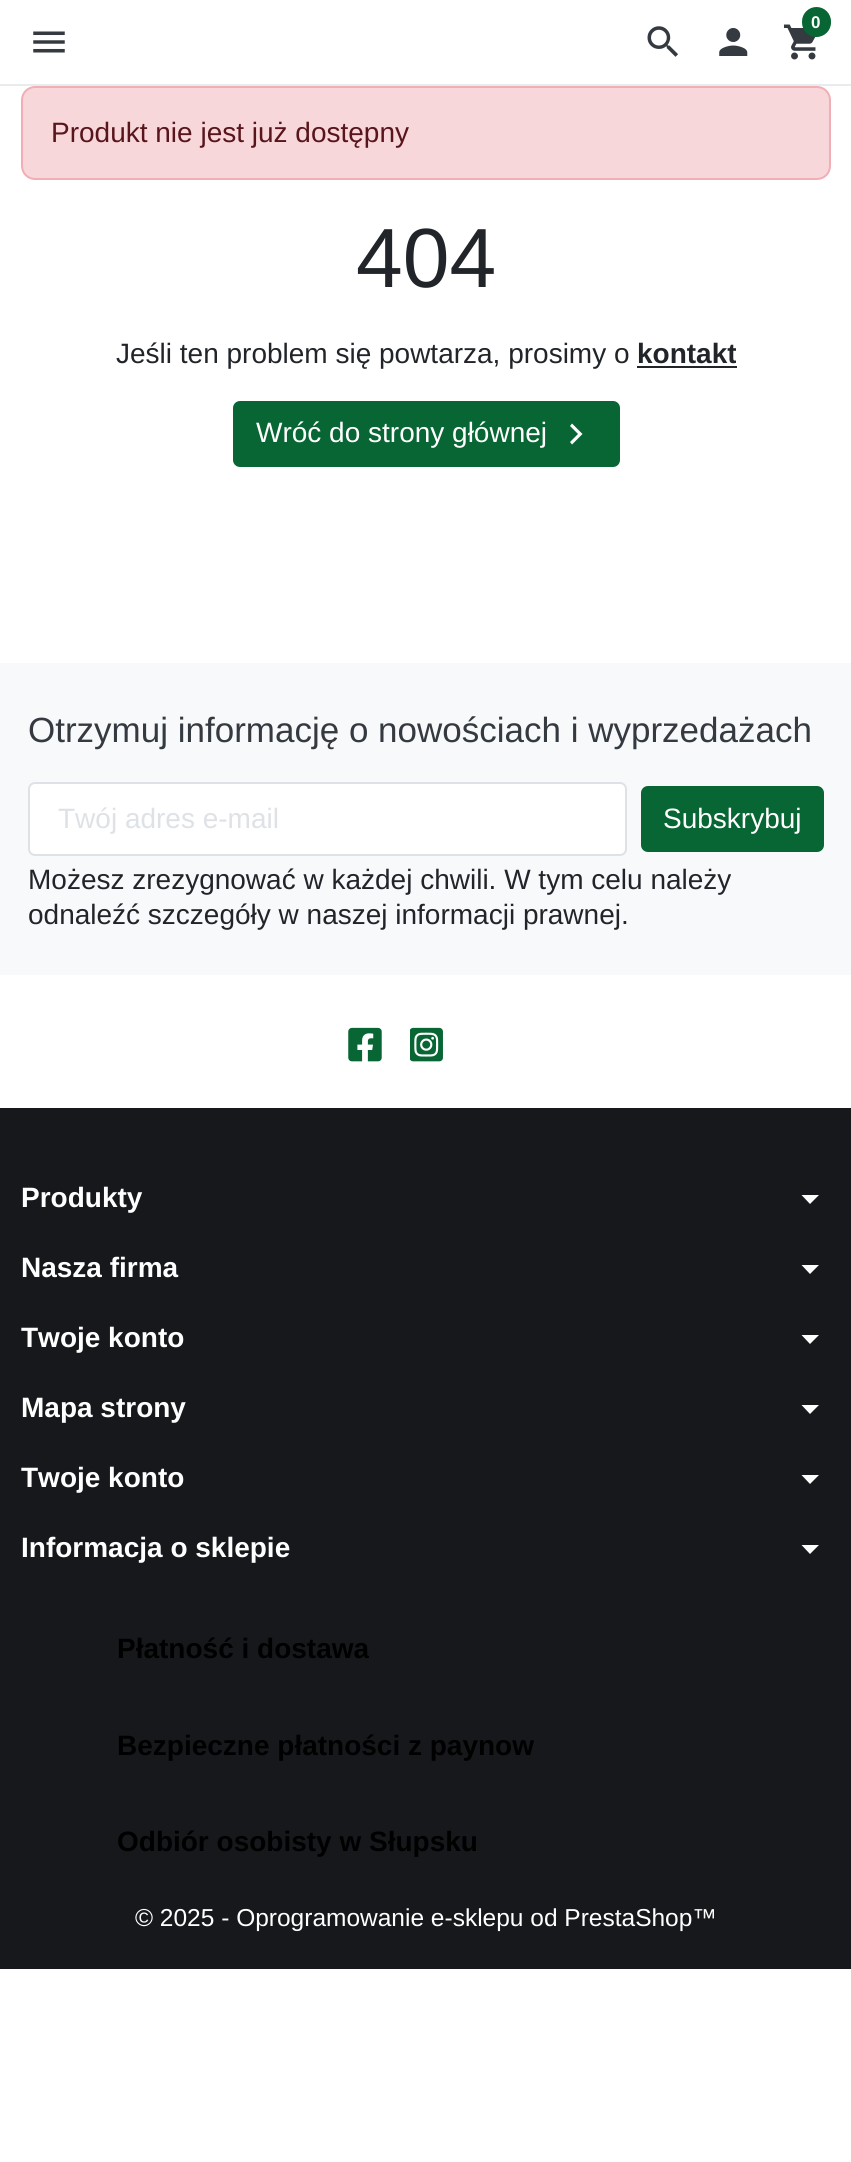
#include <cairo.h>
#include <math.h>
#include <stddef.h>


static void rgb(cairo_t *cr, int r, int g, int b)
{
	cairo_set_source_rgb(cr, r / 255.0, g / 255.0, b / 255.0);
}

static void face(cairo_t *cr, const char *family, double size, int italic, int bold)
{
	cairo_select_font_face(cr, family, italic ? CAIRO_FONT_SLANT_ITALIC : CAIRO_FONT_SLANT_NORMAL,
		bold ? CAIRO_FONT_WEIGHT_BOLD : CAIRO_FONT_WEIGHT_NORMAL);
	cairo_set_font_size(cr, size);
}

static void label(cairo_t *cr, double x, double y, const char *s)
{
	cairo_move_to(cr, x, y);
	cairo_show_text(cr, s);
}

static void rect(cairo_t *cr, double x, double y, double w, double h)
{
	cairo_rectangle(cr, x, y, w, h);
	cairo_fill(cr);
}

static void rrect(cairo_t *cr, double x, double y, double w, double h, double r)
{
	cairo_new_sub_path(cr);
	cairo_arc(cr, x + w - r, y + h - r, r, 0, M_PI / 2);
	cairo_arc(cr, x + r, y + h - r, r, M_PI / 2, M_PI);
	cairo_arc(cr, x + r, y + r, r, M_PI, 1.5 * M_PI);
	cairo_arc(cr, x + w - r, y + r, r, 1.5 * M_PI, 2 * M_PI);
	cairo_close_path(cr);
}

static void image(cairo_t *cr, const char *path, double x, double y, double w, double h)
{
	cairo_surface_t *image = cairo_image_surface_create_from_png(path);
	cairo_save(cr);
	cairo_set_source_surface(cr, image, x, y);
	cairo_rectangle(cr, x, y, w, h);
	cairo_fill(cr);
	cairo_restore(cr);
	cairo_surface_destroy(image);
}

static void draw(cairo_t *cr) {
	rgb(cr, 255, 255, 255);
	cairo_paint(cr);
	rgb(cr, 233, 236, 239);
	rect(cr, 0, 84, 851, 2);
	image(cr, "image0.png", 783, 24, 33, 36);
	rgb(cr, 7, 102, 51);
	rrect(cr, 802, 7, 29, 30, 14.5);
	cairo_fill(cr);
	face(cr, "Liberation Sans", 17, 0, 1);
	rgb(cr, 255, 255, 255);
	label(cr, 811, 28, "0");
	image(cr, "image1.png", 33, 31, 32, 22);
	image(cr, "image2.png", 647, 26, 31, 31);
	image(cr, "image3.png", 719, 28, 29, 28);
	rgb(cr, 248, 215, 218);
	rrect(cr, 22, 87, 808, 92, 13);
	cairo_fill_preserve(cr);
	rgb(cr, 241, 174, 181);
	cairo_stroke(cr);
	face(cr, "Liberation Sans", 28, 0, 0);
	rgb(cr, 88, 21, 28);
	label(cr, 51, 142, "Produkt nie jest już dostępny");
	face(cr, "Liberation Sans", 84, 0, 0);
	rgb(cr, 33, 37, 41);
	label(cr, 356, 287, "404");
	face(cr, "Liberation Sans", 28, 0, 0);
	label(cr, 116, 363, "Jeśli ten problem się powtarza, prosimy o");
	face(cr, "Liberation Sans", 28, 0, 1);
	label(cr, 637, 363, "kontakt");
	rect(cr, 637, 366, 100, 2);
	rgb(cr, 7, 102, 51);
	rrect(cr, 234, 402, 385, 64, 6);
	cairo_fill_preserve(cr);
	cairo_stroke(cr);
	face(cr, "Liberation Sans", 28, 0, 0);
	rgb(cr, 255, 255, 255);
	label(cr, 256, 442, "Wróć do strony głównej");
	cairo_new_path(cr);
	cairo_move_to(cr, 570, 442);
	cairo_line_to(cr, 578, 434);
	cairo_line_to(cr, 570, 426);
	cairo_line_to(cr, 572, 423.5);
	cairo_line_to(cr, 582.5, 434);
	cairo_line_to(cr, 572, 444.5);
	cairo_close_path(cr);
	cairo_fill(cr);
	rgb(cr, 248, 249, 250);
	rect(cr, 0, 663, 851, 312);
	face(cr, "Liberation Sans", 35, 0, 0);
	rgb(cr, 52, 58, 64);
	label(cr, 28, 742, "Otrzymuj informację o nowościach i wyprzedażach");
	rgb(cr, 255, 255, 255);
	rrect(cr, 29, 783, 597, 72, 6);
	cairo_fill_preserve(cr);
	rgb(cr, 222, 226, 230);
	cairo_stroke(cr);
	face(cr, "Liberation Sans", 28, 0, 0);
	label(cr, 58, 828, "Twój adres e-mail");
	rgb(cr, 7, 102, 51);
	rrect(cr, 642, 787, 181, 64, 6);
	cairo_fill_preserve(cr);
	cairo_stroke(cr);
	rgb(cr, 255, 255, 255);
	label(cr, 663, 828, "Subskrybuj");
	rgb(cr, 33, 37, 41);
	label(cr, 28, 889, "Możesz zrezygnować w każdej chwili. W tym celu należy");
	label(cr, 28, 924, "odnaleźć szczegóły w naszej informacji prawnej.");
	image(cr, "image4.png", 348, 1027, 34, 35);
	image(cr, "image5.png", 410, 1027, 33, 35);
	rgb(cr, 22, 24, 28);
	rect(cr, 0, 1108, 851, 861);
	face(cr, "Liberation Sans", 28, 0, 1);
	rgb(cr, 255, 255, 255);
	label(cr, 21, 1207, "Produkty");
	cairo_new_path(cr);
	cairo_move_to(cr, 801.5, 1195);
	cairo_line_to(cr, 819, 1195);
	cairo_line_to(cr, 810, 1204);
	cairo_close_path(cr);
	cairo_fill(cr);
	label(cr, 21, 1277, "Nasza firma");
	cairo_new_path(cr);
	cairo_move_to(cr, 801.5, 1265);
	cairo_line_to(cr, 819, 1265);
	cairo_line_to(cr, 810, 1274);
	cairo_close_path(cr);
	cairo_fill(cr);
	label(cr, 21, 1347, "Twoje konto");
	cairo_new_path(cr);
	cairo_move_to(cr, 801.5, 1335);
	cairo_line_to(cr, 819, 1335);
	cairo_line_to(cr, 810, 1344);
	cairo_close_path(cr);
	cairo_fill(cr);
	label(cr, 21, 1417, "Mapa strony");
	cairo_new_path(cr);
	cairo_move_to(cr, 801.5, 1405);
	cairo_line_to(cr, 819, 1405);
	cairo_line_to(cr, 810, 1414);
	cairo_close_path(cr);
	cairo_fill(cr);
	label(cr, 21, 1487, "Twoje konto");
	cairo_new_path(cr);
	cairo_move_to(cr, 801.5, 1475);
	cairo_line_to(cr, 819, 1475);
	cairo_line_to(cr, 810, 1484);
	cairo_close_path(cr);
	cairo_fill(cr);
	label(cr, 21, 1557, "Informacja o sklepie");
	cairo_new_path(cr);
	cairo_move_to(cr, 801.5, 1545);
	cairo_line_to(cr, 819, 1545);
	cairo_line_to(cr, 810, 1554);
	cairo_close_path(cr);
	cairo_fill(cr);
	rgb(cr, 0, 0, 0);
	label(cr, 117, 1658, "Płatność i dostawa");
	label(cr, 117, 1755, "Bezpieczne płatności z paynow");
	label(cr, 117, 1851, "Odbiór osobisty w Słupsku");
	face(cr, "Liberation Sans", 24.5, 0, 0);
	rgb(cr, 255, 255, 255);
	label(cr, 135, 1926, "© 2025 - Oprogramowanie e-sklepu od PrestaShop™");
}

int main(void) {
	cairo_surface_t *surface = cairo_image_surface_create(CAIRO_FORMAT_RGB24, 851, 2162);
	cairo_t *cr = cairo_create(surface);
	cairo_font_options_t *options = cairo_font_options_create();
	cairo_font_options_set_hint_metrics(options, CAIRO_HINT_METRICS_OFF);
	cairo_font_options_set_hint_style(options, CAIRO_HINT_STYLE_NONE);
	cairo_set_font_options(cr, options);
	cairo_set_miter_limit(cr, 4);
	draw(cr);
	cairo_surface_write_to_png(surface, "render.png");
	cairo_font_options_destroy(options);
	cairo_destroy(cr);
	cairo_surface_destroy(surface);
	return 0;
}
